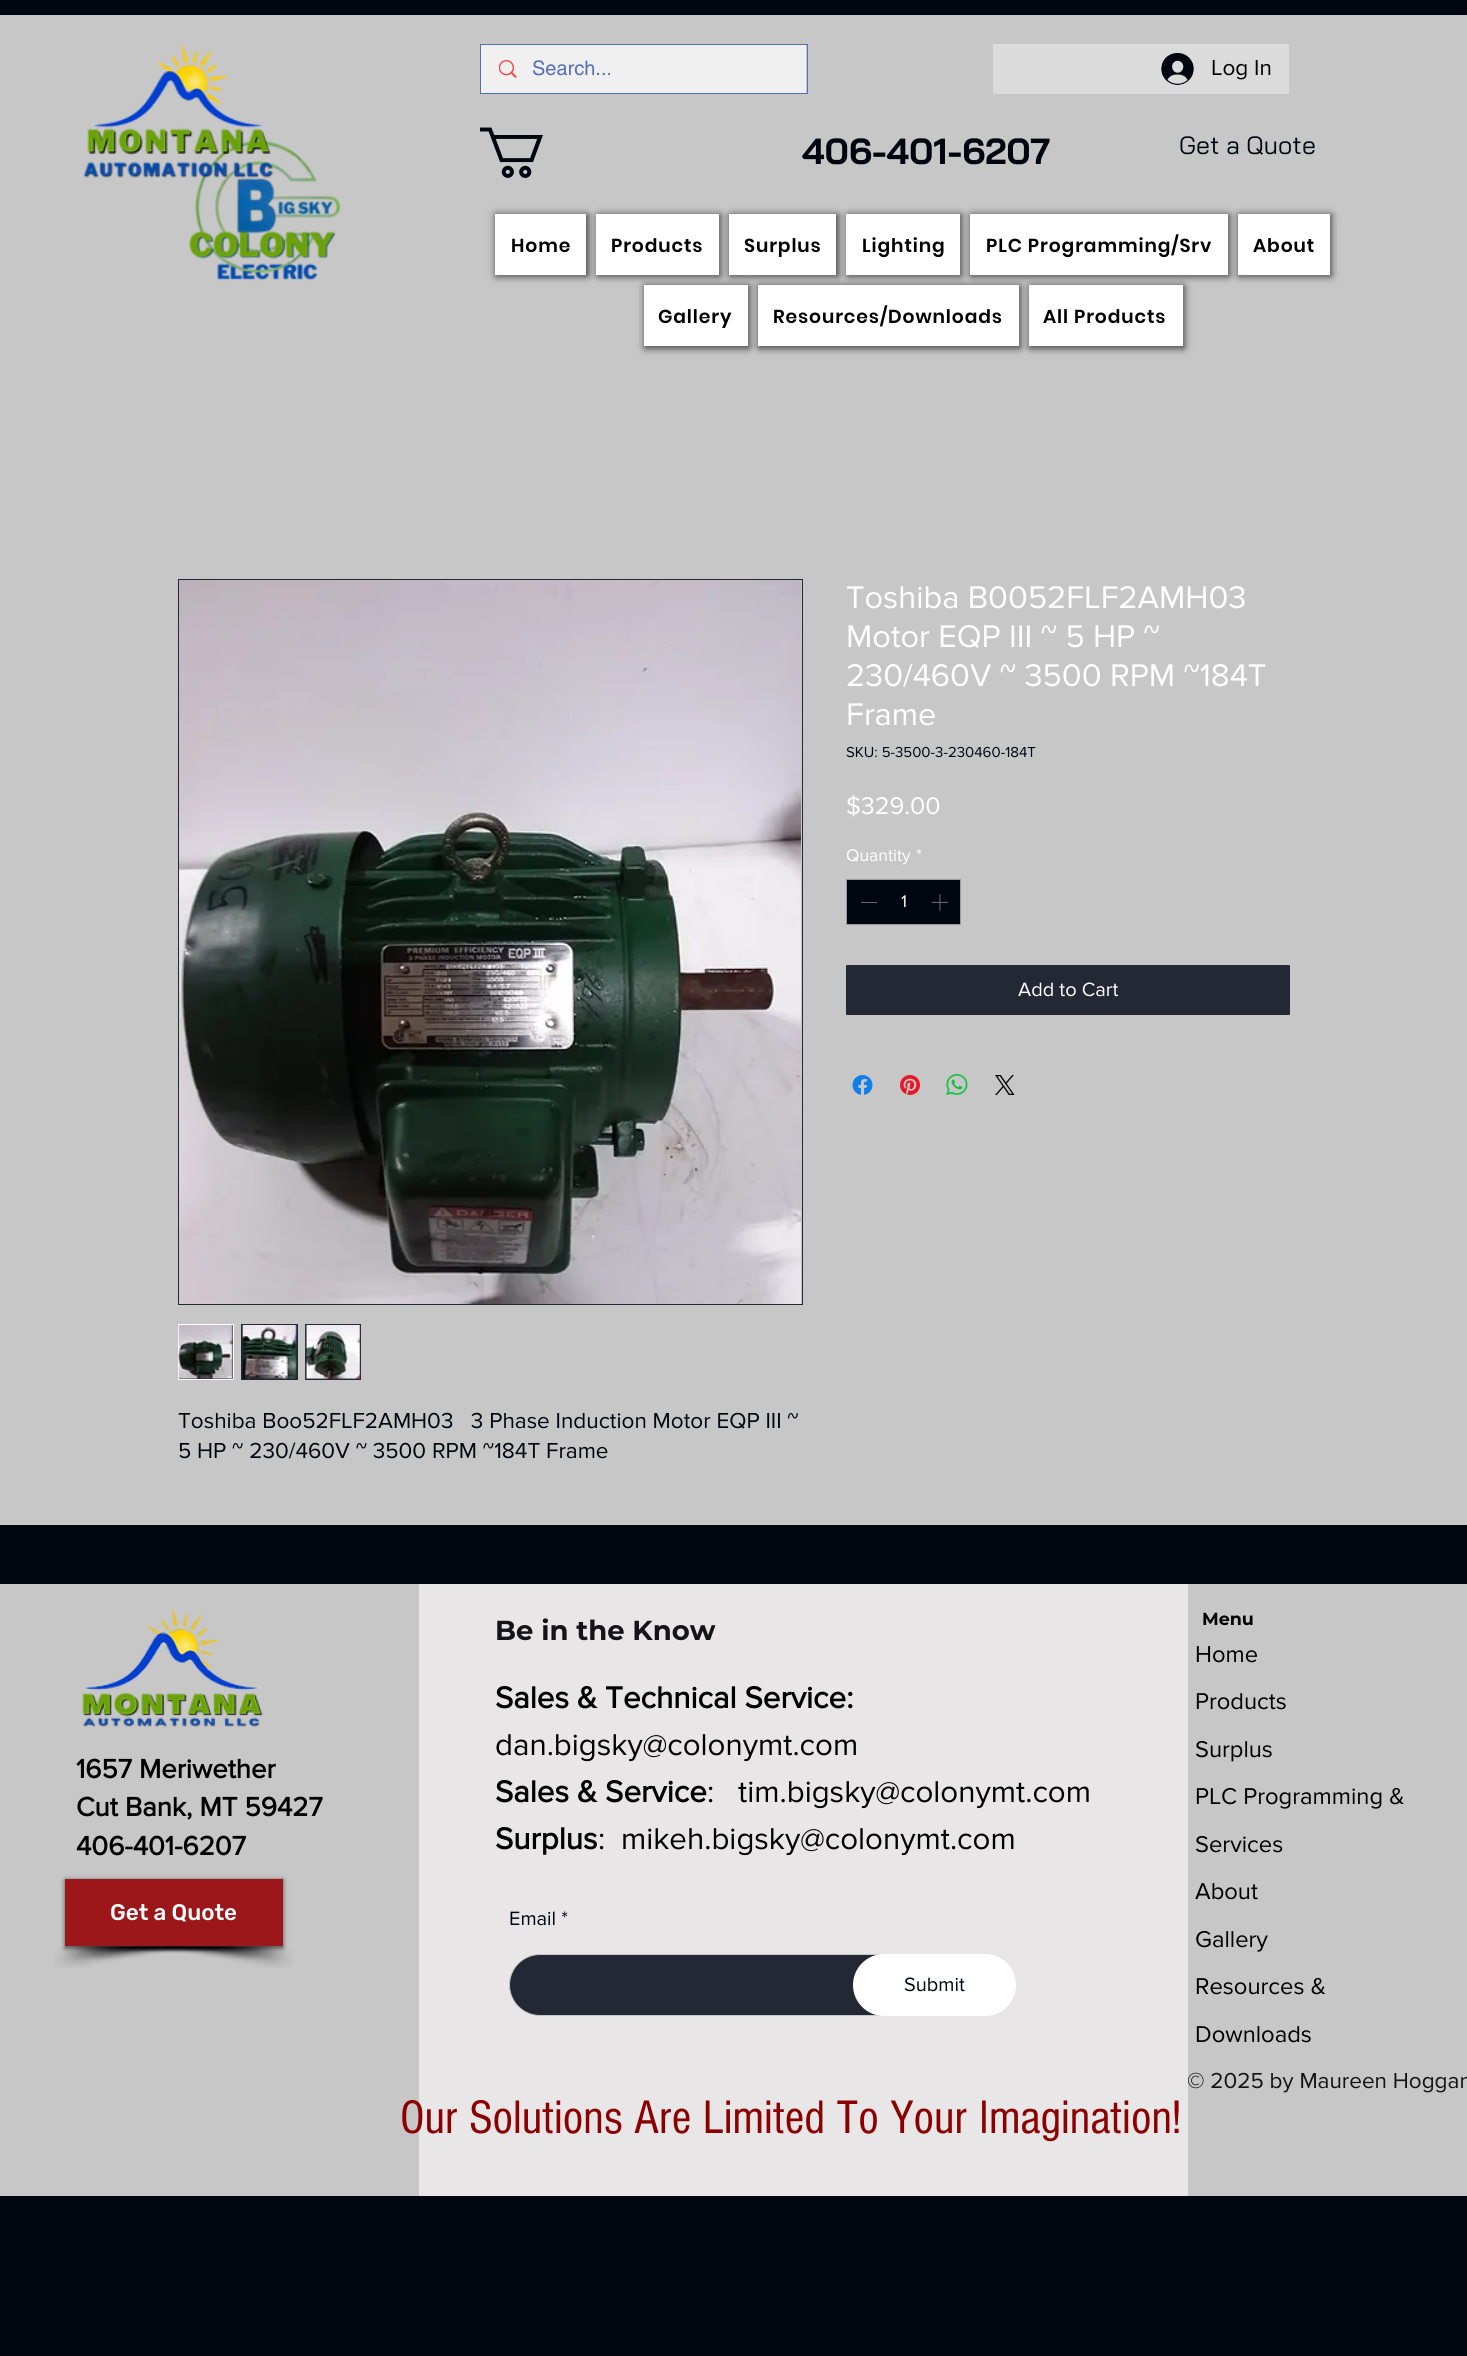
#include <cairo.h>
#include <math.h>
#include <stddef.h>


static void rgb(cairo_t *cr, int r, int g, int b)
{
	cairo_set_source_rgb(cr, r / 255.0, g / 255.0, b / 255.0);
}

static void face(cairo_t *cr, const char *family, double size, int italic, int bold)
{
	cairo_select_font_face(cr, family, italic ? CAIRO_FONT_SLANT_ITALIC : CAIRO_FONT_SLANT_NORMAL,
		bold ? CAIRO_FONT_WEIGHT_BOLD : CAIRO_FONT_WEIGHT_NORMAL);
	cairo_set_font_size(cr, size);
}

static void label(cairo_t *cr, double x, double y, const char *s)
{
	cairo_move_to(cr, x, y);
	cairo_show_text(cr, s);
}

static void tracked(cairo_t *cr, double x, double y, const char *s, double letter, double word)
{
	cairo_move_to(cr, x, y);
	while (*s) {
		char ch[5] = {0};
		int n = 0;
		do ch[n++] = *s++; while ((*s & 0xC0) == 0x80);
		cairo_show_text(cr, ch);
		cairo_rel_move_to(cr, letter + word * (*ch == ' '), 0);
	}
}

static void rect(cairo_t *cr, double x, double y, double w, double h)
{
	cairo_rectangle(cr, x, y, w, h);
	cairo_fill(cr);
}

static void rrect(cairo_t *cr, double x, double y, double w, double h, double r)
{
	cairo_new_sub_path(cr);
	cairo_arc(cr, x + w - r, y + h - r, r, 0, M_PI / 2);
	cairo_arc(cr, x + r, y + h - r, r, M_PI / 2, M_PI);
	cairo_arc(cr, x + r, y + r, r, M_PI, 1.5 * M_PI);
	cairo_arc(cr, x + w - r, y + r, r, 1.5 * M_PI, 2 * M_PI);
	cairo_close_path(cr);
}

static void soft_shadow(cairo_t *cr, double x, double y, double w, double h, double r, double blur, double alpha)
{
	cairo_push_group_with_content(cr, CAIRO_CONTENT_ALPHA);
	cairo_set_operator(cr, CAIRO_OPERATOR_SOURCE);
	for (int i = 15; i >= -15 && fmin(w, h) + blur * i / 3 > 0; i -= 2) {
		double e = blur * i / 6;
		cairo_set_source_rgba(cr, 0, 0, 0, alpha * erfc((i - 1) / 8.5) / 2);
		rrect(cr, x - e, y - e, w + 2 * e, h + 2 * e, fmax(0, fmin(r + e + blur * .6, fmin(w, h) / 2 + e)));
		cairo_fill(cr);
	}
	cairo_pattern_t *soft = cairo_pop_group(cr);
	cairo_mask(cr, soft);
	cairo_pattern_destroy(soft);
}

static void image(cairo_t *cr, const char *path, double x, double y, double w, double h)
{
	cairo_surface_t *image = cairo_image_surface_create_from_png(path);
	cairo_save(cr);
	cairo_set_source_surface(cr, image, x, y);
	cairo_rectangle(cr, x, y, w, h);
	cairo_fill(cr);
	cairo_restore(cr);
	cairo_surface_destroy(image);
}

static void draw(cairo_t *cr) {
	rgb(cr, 0, 6, 15);
	cairo_paint(cr);
	rgb(cr, 199, 199, 199);
	rect(cr, 0, 15, 1467, 381);
	image(cr, "image0.png", 83, 45, 259, 236);
	cairo_rectangle(cr, 480.5, 44.5, 327, 49);
	rgb(cr, 86, 111, 184);
	cairo_set_line_width(cr, 1);
	cairo_stroke(cr);
	rgb(cr, 240, 240, 240);
	rect(cr, 481, 45, 325, 48);
	image(cr, "image1.png", 499, 60, 18, 18);
	face(cr, "helvetica", 20, 0, 0);
	rgb(cr, 86, 111, 184);
	label(cr, 532, 75, "Search...");
	rgb(cr, 220, 219, 219);
	rect(cr, 993, 44, 296, 50);
	image(cr, "image2.png", 1161, 53, 33, 32);
	face(cr, "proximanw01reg", 22.5, 0, 0);
	rgb(cr, 0, 0, 0);
	label(cr, 1211, 75, "Log In");
	image(cr, "image3.png", 480, 127, 63, 51);
	face(cr, "Bai Jamjuree", 36.25, 0, 1);
	rgb(cr, 0, 6, 15);
	label(cr, 802, 164, "406-401-6207");
	face(cr, "Bai Jamjuree", 25, 0, 0);
	label(cr, 1179, 154, "Get a Quote");
	rgb(cr, 36, 35, 35);
	soft_shadow(cr, 496, 215, 92, 61, 0, 4, 0.88);
	rgb(cr, 255, 255, 255);
	rect(cr, 495, 214, 91, 61);
	face(cr, "Poppins SemiBold", 18.75, 0, 0);
	rgb(cr, 0, 0, 0);
	tracked(cr, 511, 252, "Home", 0.9, 0);
	rgb(cr, 36, 35, 35);
	soft_shadow(cr, 598, 215, 122, 61, 0, 4, 0.88);
	rgb(cr, 255, 255, 255);
	rect(cr, 596, 214, 123, 61);
	rgb(cr, 0, 0, 0);
	tracked(cr, 611, 252, "Products", 0.9, 0);
	rgb(cr, 36, 35, 35);
	soft_shadow(cr, 730, 215, 108, 61, 0, 4, 0.88);
	rgb(cr, 255, 255, 255);
	rect(cr, 729, 214, 107, 61);
	rgb(cr, 0, 0, 0);
	tracked(cr, 744, 252, "Surplus", 0.9, 0);
	rgb(cr, 36, 35, 35);
	soft_shadow(cr, 848, 215, 113, 61, 0, 4, 0.88);
	rgb(cr, 255, 255, 255);
	rect(cr, 846, 214, 114, 61);
	rgb(cr, 0, 0, 0);
	tracked(cr, 862, 252, "Lighting", 0.9, 0);
	rgb(cr, 36, 35, 35);
	soft_shadow(cr, 971, 215, 258, 61, 0, 4, 0.88);
	rgb(cr, 255, 255, 255);
	rect(cr, 970, 214, 258, 61);
	rgb(cr, 0, 0, 0);
	tracked(cr, 986, 252, "PLC Programming/Srv", 0.9, 0);
	rgb(cr, 36, 35, 35);
	soft_shadow(cr, 1239, 215, 92, 61, 0, 4, 0.88);
	rgb(cr, 255, 255, 255);
	rect(cr, 1238, 214, 92, 61);
	rgb(cr, 0, 0, 0);
	tracked(cr, 1253, 252, "About", 0.9, 0);
	rgb(cr, 36, 35, 35);
	soft_shadow(cr, 645, 286, 104, 62, 0, 4, 0.88);
	rgb(cr, 255, 255, 255);
	rect(cr, 644, 285, 104, 61);
	rgb(cr, 0, 0, 0);
	tracked(cr, 658, 323, "Gallery", 0.9, 0);
	rgb(cr, 36, 35, 35);
	soft_shadow(cr, 759, 286, 261, 62, 0, 4, 0.88);
	rgb(cr, 255, 255, 255);
	rect(cr, 758, 285, 261, 61);
	rgb(cr, 0, 0, 0);
	tracked(cr, 773, 323, "Resources/Downloads", 0.9, 0);
	rgb(cr, 36, 35, 35);
	soft_shadow(cr, 1030, 286, 154, 62, 0, 4, 0.88);
	rgb(cr, 255, 255, 255);
	rect(cr, 1029, 285, 154, 61);
	rgb(cr, 0, 0, 0);
	tracked(cr, 1043, 323, "All Products", 0.9, 0);
	rgb(cr, 199, 199, 199);
	rect(cr, 0, 396, 1467, 1129);
	face(cr, "proximanw01reg", 32.5, 0, 0);
	rgb(cr, 255, 255, 255);
	label(cr, 846, 608, "Toshiba B0052FLF2AMH03");
	label(cr, 846, 647, "Motor EQP III ~ 5 HP ~");
	label(cr, 846, 686, "230/460V ~ 3500 RPM ~184T");
	label(cr, 846, 725, "Frame");
	face(cr, "proximanw01reg", 15, 0, 0);
	rgb(cr, 0, 6, 15);
	label(cr, 846, 757, "SKU: 5-3500-3-230460-184T");
	face(cr, "proximanw01reg", 25, 0, 0);
	rgb(cr, 255, 255, 255);
	label(cr, 846, 814, "$329.00");
	face(cr, "proximanw01reg", 17.5, 0, 0);
	label(cr, 846, 861, "Quantity");
	label(cr, 916, 861, "*");
	rgb(cr, 0, 6, 15);
	cairo_rectangle(cr, 846.5, 879.5, 114, 45);
	cairo_fill_preserve(cr);
	rgb(cr, 153, 155, 159);
	cairo_stroke(cr);
	rgb(cr, 100, 103, 107);
	rect(cr, 861, 902, 16, 1);
	rgb(cr, 255, 255, 255);
	label(cr, 901, 907, "1");
	image(cr, "image4.png", 931, 894, 18, 17);
	rgb(cr, 36, 40, 52);
	rrect(cr, 846, 965, 444, 50, 1);
	cairo_fill(cr);
	face(cr, "proximanw01reg", 20, 0, 0);
	rgb(cr, 255, 255, 255);
	label(cr, 1018, 996, "Add to Cart");
	image(cr, "image5.png", 852, 1075, 21, 20);
	image(cr, "image6.png", 900, 1075, 20, 20);
	image(cr, "image7.png", 946, 1073, 22, 23);
	image(cr, "image8.png", 995, 1075, 20, 20);
	cairo_rectangle(cr, 178.5, 579.5, 624, 725);
	rgb(cr, 36, 40, 52);
	cairo_stroke(cr);
	image(cr, "image9.png", 179, 580, 622, 724);
	cairo_rectangle(cr, 178.5, 1324.5, 55, 55);
	cairo_fill_preserve(cr);
	rgb(cr, 255, 255, 255);
	cairo_stroke(cr);
	image(cr, "image10.png", 178, 1325, 55, 54);
	rgb(cr, 36, 40, 52);
	rect(cr, 241, 1324, 57, 56);
	image(cr, "image11.png", 242, 1325, 55, 54);
	rect(cr, 305, 1324, 56, 56);
	image(cr, "image12.png", 305, 1325, 56, 54);
	face(cr, "proximanw01reg", 22.5, 0, 0);
	rgb(cr, 0, 6, 15);
	label(cr, 178, 1428, "Toshiba Boo52FLF2AMH03   3 Phase Induction Motor EQP III ~");
	label(cr, 178, 1458, "5 HP ~ 230/460V ~ 3500 RPM ~184T Frame");
	rgb(cr, 199, 199, 199);
	rect(cr, 0, 1584, 1467, 612);
	image(cr, "image13.png", 82, 1608, 181, 119);
	face(cr, "proximanw01reg", 27.5, 0, 1);
	rgb(cr, 0, 0, 0);
	label(cr, 76, 1778, "1657 Meriwether");
	label(cr, 76, 1816, "Cut Bank, MT 59427");
	label(cr, 76, 1855, "406-401-6207");
	image(cr, "image14.png", 54, 1946, 184, 22);
	image(cr, "image15.png", 128, 1946, 165, 22);
	rgb(cr, 0, 0, 0);
	soft_shadow(cr, 65, 1880, 218, 68, 0, 2.5, 0.6);
	rgb(cr, 156, 23, 26);
	rect(cr, 65, 1879, 218, 67);
	face(cr, "Rubik Medium", 22.5, 0, 0);
	rgb(cr, 255, 255, 255);
	label(cr, 110, 1920, "Get a Quote");
	rgb(cr, 232, 230, 230);
	rect(cr, 419, 1584, 769, 612);
	face(cr, "Montserrat", 27.5, 0, 1);
	rgb(cr, 20, 20, 22);
	label(cr, 495, 1640, "Be in the Know");
	face(cr, "proximanw01reg", 31.25, 0, 1);
	rgb(cr, 0, 0, 0);
	label(cr, 495, 1708, "Sales & Technical Service:");
	face(cr, "proximanw01reg", 31.25, 0, 0);
	label(cr, 495, 1755, "dan.bigsky@colonymt.com");
	face(cr, "proximanw01reg", 31.25, 0, 1);
	label(cr, 495, 1802, "Sales & Service");
	face(cr, "proximanw01reg", 31.25, 0, 0);
	label(cr, 707, 1802, ":");
	label(cr, 738, 1802, "tim.bigsky@colonymt.com");
	face(cr, "proximanw01reg", 31.25, 0, 1);
	label(cr, 495, 1849, "Surplus");
	face(cr, "proximanw01reg", 31.25, 0, 0);
	label(cr, 598, 1849, ":");
	label(cr, 621, 1849, "mikeh.bigsky@colonymt.com");
	face(cr, "proximanw01reg", 20, 0, 0);
	rgb(cr, 0, 6, 15);
	label(cr, 509, 1925, "Email *");
	rgb(cr, 36, 40, 52);
	rrect(cr, 509.5, 1954.5, 411, 61, 30.5);
	cairo_fill_preserve(cr);
	rgb(cr, 199, 199, 199);
	cairo_stroke(cr);
	rgb(cr, 255, 255, 255);
	rrect(cr, 853, 1954, 163, 62, 31);
	cairo_fill(cr);
	rgb(cr, 0, 6, 15);
	label(cr, 904, 1991, "Submit");
	face(cr, "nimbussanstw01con", 48.75, 0, 0);
	rgb(cr, 139, 0, 0);
	label(cr, 400, 2133, "Our Solutions Are Limited To Your Imagination!");
	face(cr, "Montserrat", 17.5, 0, 1);
	rgb(cr, 0, 0, 0);
	label(cr, 1202, 1625, "Menu");
	face(cr, "proximanw01reg", 23.75, 0, 0);
	label(cr, 1195, 1662, "Home");
	label(cr, 1195, 1709, "Products");
	label(cr, 1195, 1757, "Surplus");
	label(cr, 1195, 1804, "PLC Programming &");
	label(cr, 1195, 1852, "Services");
	label(cr, 1195, 1899, "About");
	label(cr, 1195, 1947, "Gallery");
	label(cr, 1195, 1994, "Resources &");
	label(cr, 1195, 2042, "Downloads");
	face(cr, "proximanw01reg", 22.5, 0, 0);
	rgb(cr, 20, 20, 22);
	label(cr, 1187, 2088, "© 2025 by Maureen Hoggan");
}

int main(void) {
	cairo_surface_t *surface = cairo_image_surface_create(CAIRO_FORMAT_RGB24, 1467, 2356);
	cairo_t *cr = cairo_create(surface);
	cairo_font_options_t *options = cairo_font_options_create();
	cairo_font_options_set_hint_metrics(options, CAIRO_HINT_METRICS_OFF);
	cairo_font_options_set_hint_style(options, CAIRO_HINT_STYLE_NONE);
	cairo_set_font_options(cr, options);
	cairo_set_miter_limit(cr, 4);
	draw(cr);
	cairo_surface_write_to_png(surface, "render.png");
	cairo_font_options_destroy(options);
	cairo_destroy(cr);
	cairo_surface_destroy(surface);
	return 0;
}
